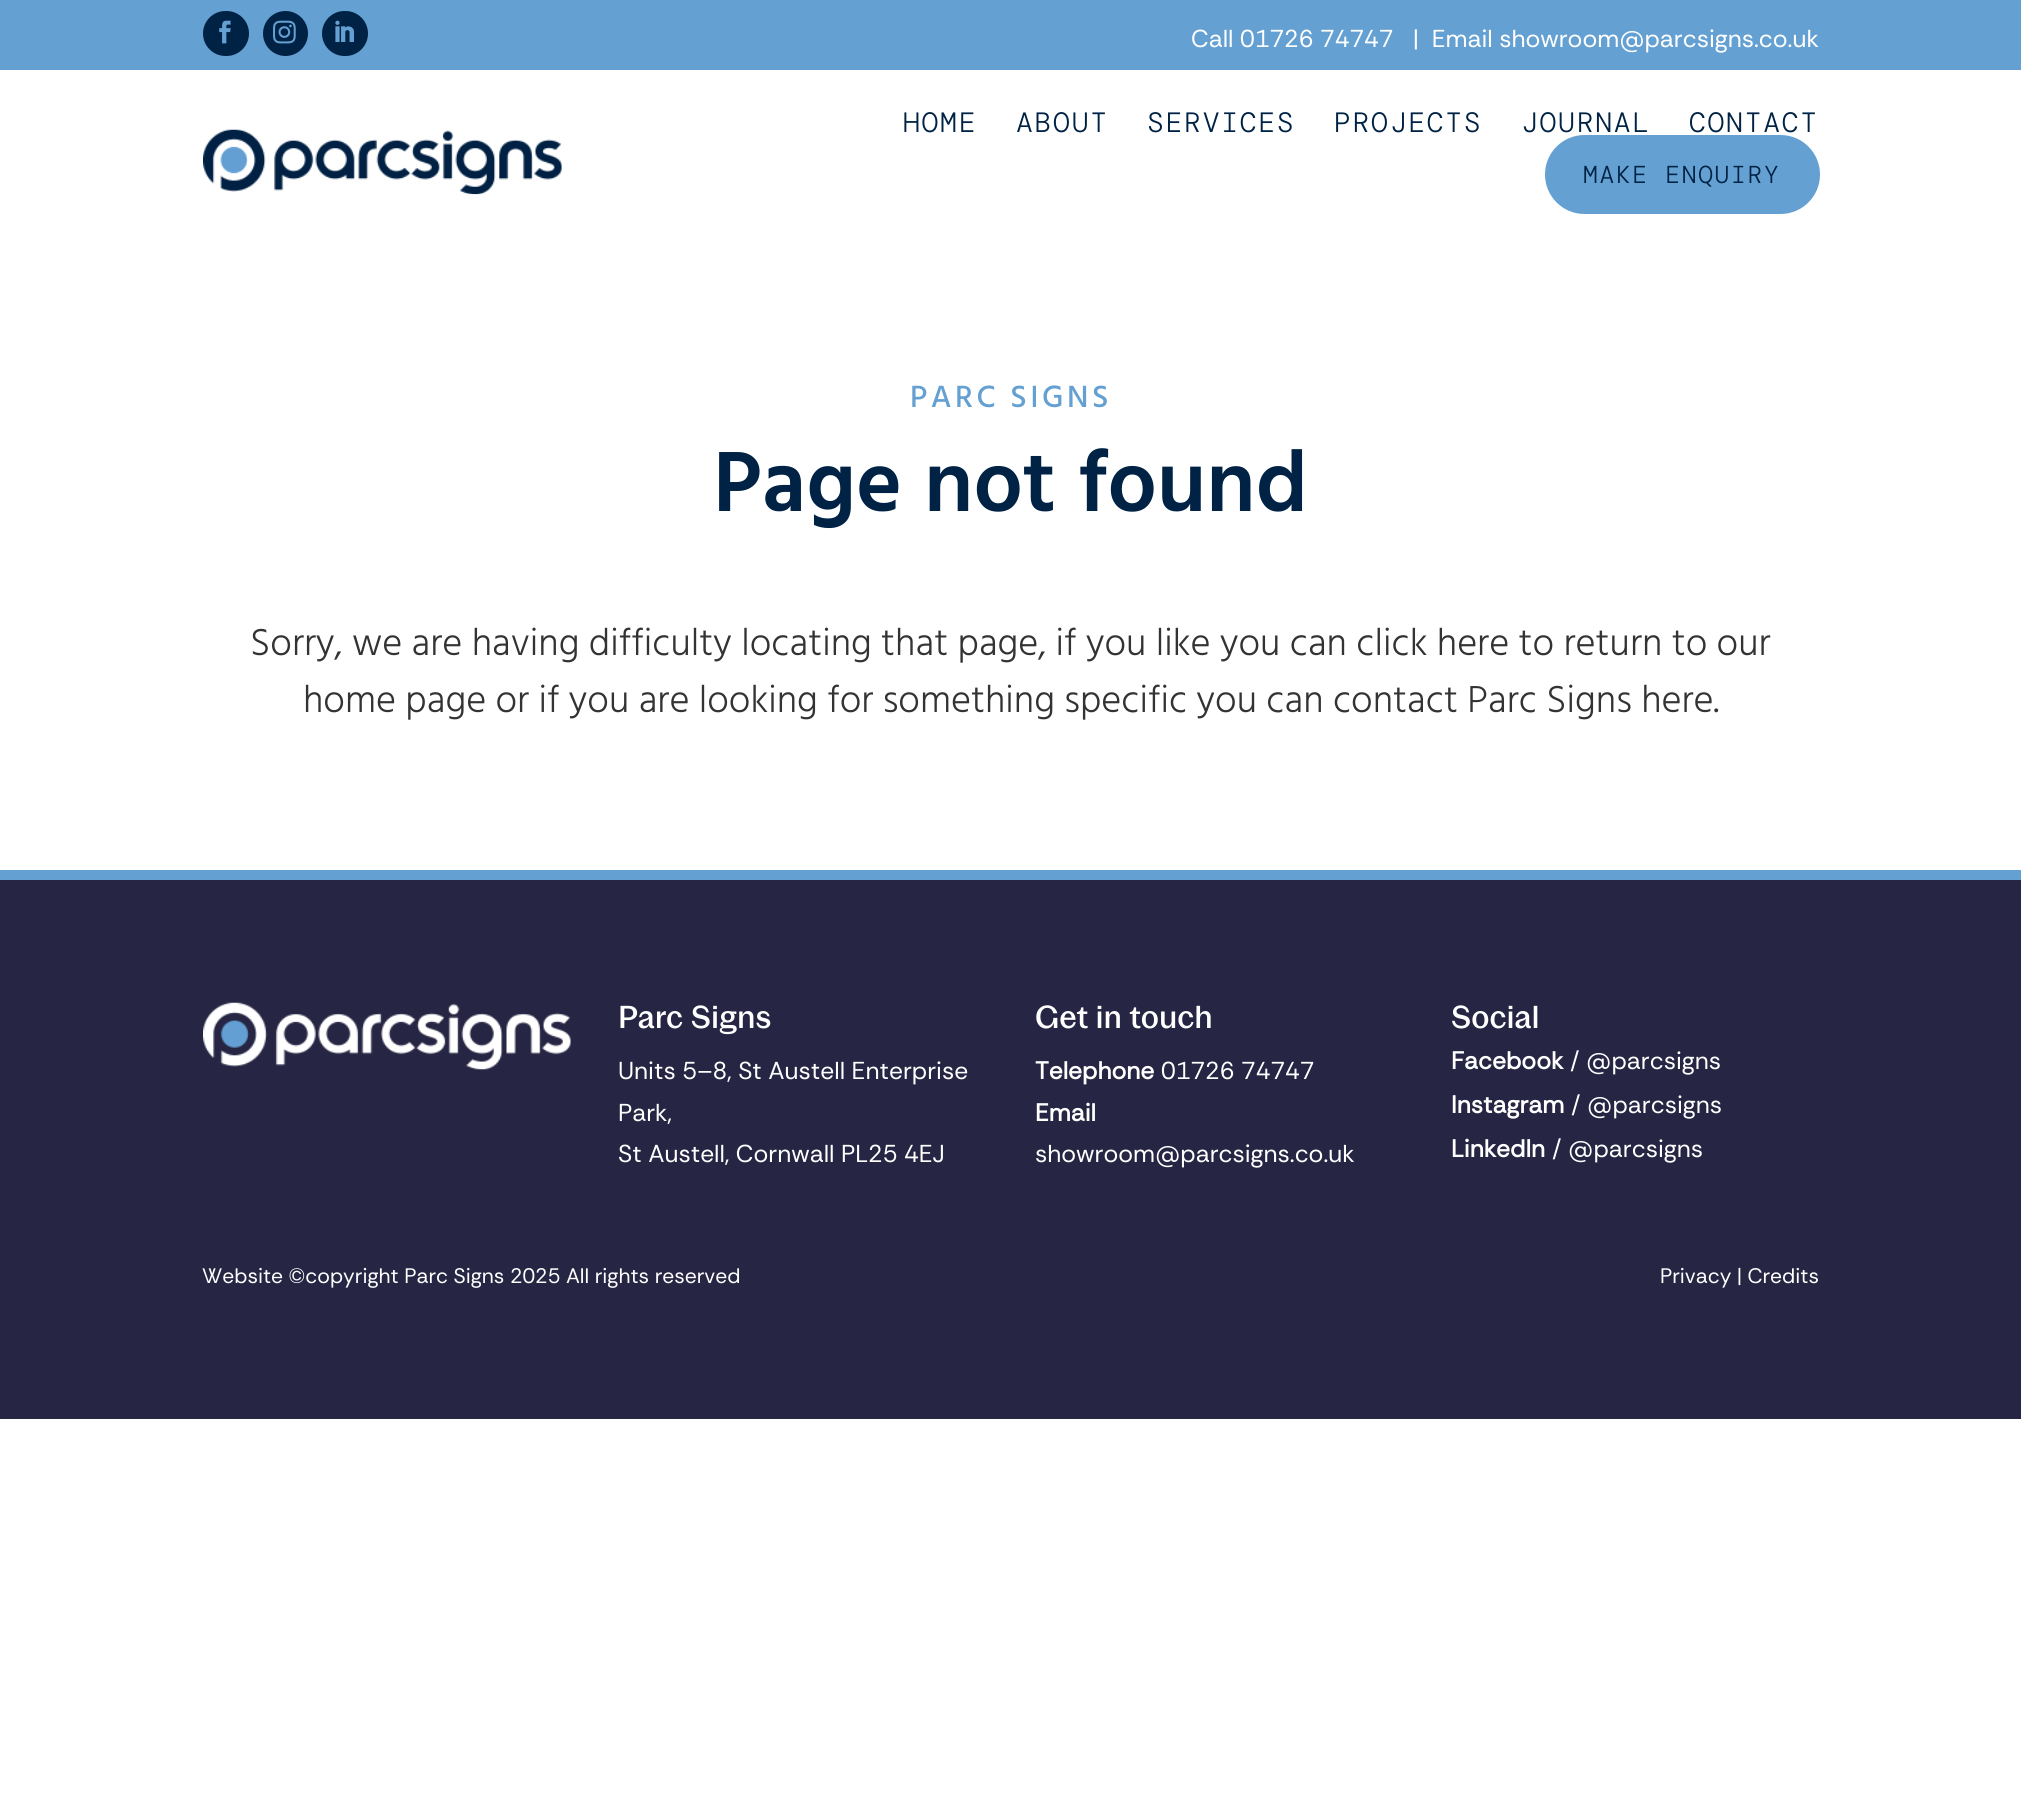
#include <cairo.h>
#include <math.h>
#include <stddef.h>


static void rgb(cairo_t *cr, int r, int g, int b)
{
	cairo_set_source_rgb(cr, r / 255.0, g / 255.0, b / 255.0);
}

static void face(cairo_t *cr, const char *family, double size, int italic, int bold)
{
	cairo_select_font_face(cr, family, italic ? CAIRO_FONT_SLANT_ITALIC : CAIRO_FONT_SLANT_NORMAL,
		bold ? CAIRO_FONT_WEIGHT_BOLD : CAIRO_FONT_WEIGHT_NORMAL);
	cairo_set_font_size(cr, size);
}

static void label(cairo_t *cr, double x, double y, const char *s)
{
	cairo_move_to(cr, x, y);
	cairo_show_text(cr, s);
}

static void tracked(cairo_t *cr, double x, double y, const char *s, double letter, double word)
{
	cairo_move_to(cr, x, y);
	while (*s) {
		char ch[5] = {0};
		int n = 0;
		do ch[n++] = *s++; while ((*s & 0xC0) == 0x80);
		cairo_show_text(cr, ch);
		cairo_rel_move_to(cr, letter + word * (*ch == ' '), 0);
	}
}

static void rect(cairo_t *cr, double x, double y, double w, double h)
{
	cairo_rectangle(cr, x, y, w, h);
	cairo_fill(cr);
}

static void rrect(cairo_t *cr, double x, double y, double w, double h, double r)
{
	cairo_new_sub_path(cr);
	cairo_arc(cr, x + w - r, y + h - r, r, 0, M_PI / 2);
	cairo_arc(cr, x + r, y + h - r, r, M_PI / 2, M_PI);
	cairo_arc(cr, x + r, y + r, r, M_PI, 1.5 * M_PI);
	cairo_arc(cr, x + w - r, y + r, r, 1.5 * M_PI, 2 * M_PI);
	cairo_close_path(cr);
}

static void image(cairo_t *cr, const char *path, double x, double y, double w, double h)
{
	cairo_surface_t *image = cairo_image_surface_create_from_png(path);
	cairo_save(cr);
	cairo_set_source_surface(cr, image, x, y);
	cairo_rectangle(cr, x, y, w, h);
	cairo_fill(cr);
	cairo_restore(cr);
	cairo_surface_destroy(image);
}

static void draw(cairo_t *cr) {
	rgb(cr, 255, 255, 255);
	cairo_paint(cr);
	rgb(cr, 100, 160, 210);
	rect(cr, 0, 0, 2021, 70);
	rgb(cr, 0, 34, 68);
	rrect(cr, 203, 11, 46, 45, 22.5);
	cairo_fill(cr);
	image(cr, "image0.png", 219, 20, 12, 24);
	cairo_arc(cr, 285.5, 33.5, 22.5, 0, 2 * M_PI);
	cairo_fill(cr);
	image(cr, "image1.png", 273, 20, 23, 24);
	rrect(cr, 322, 11, 46, 45, 22.5);
	cairo_fill(cr);
	image(cr, "image2.png", 335, 20, 19, 22);
	face(cr, "Rethink Sans Thin", 24.5, 0, 0);
	rgb(cr, 255, 255, 255);
	label(cr, 1191, 47, "Call 01726 74747");
	label(cr, 1413, 47, "|  Email showroom@parcsigns.co.uk");
	image(cr, "image3.png", 203, 129, 359, 66);
	face(cr, "DM Mono Light", 28, 0, 0);
	rgb(cr, 0, 34, 68);
	tracked(cr, 903, 132, "HOME", 1.75, 0);
	tracked(cr, 1016, 132, "ABOUT", 1.75, 0);
	tracked(cr, 1147, 132, "SERVICES", 1.75, 0);
	tracked(cr, 1334, 132, "PROJECTS", 1.75, 0);
	tracked(cr, 1521, 132, "JOURNAL", 1.75, 0);
	tracked(cr, 1689, 132, "CONTACT", 1.75, 0);
	rgb(cr, 100, 160, 210);
	rrect(cr, 1545, 135, 275, 79, 39.5);
	cairo_fill(cr);
	face(cr, "DM Mono Light", 24.5, 0, 0);
	rgb(cr, 0, 34, 68);
	tracked(cr, 1583, 183, "MAKE ENQUIRY", 1.75, 0);
	face(cr, "Hind Medium", 31.5, 0, 0);
	rgb(cr, 100, 160, 210);
	tracked(cr, 910, 407, "PARC SIGNS", 3.5, 0);
	face(cr, "Hind SemiBold", 87.5, 0, 0);
	rgb(cr, 0, 34, 68);
	label(cr, 713, 511, "Page not found");
	face(cr, "Hind Light", 38.5, 0, 0);
	rgb(cr, 51, 51, 51);
	label(cr, 250, 655, "Sorry, we are having difficulty locating that page, if you like you can click here to return to our");
	label(cr, 303, 712, "home page or if you are looking for something specific you can contact Parc Signs here.");
	rgb(cr, 38, 37, 67);
	rect(cr, 0, 880, 2021, 539);
	rgb(cr, 100, 160, 210);
	rect(cr, 0, 870, 2021, 10);
	image(cr, "image4.png", 203, 1002, 368, 68);
	face(cr, "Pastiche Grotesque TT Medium", 31.5, 0, 0);
	rgb(cr, 255, 255, 255);
	label(cr, 618, 1028, "Parc Signs");
	face(cr, "Rethink Sans Thin", 24.5, 0, 0);
	label(cr, 618, 1079, "Units 5–8, St Austell Enterprise");
	label(cr, 618, 1121, "Park,");
	label(cr, 618, 1162, "St Austell, Cornwall PL25 4EJ");
	face(cr, "Pastiche Grotesque TT Medium", 31.5, 0, 0);
	label(cr, 1035, 1028, "Get in touch");
	face(cr, "Rethink Sans", 24.5, 0, 1);
	label(cr, 1035, 1079, "Telephone");
	face(cr, "Rethink Sans Thin", 24.5, 0, 0);
	label(cr, 1161, 1079, "01726 74747");
	face(cr, "Rethink Sans", 24.5, 0, 1);
	label(cr, 1035, 1121, "Email");
	face(cr, "Rethink Sans Thin", 24.5, 0, 0);
	label(cr, 1035, 1162, "showroom@parcsigns.co.uk");
	face(cr, "Pastiche Grotesque TT Medium", 31.5, 0, 0);
	label(cr, 1451, 1028, "Social");
	face(cr, "Rethink Sans", 24.5, 0, 1);
	label(cr, 1451, 1069, "Facebook");
	face(cr, "Rethink Sans Thin", 24.5, 0, 0);
	label(cr, 1570, 1069, "/ @parcsigns");
	face(cr, "Rethink Sans", 24.5, 0, 1);
	label(cr, 1451, 1113, "Instagram");
	face(cr, "Rethink Sans Thin", 24.5, 0, 0);
	label(cr, 1571, 1113, "/ @parcsigns");
	face(cr, "Rethink Sans", 24.5, 0, 1);
	label(cr, 1451, 1157, "LinkedIn");
	face(cr, "Rethink Sans Thin", 24.5, 0, 0);
	label(cr, 1552, 1157, "/ @parcsigns");
	face(cr, "Rethink Sans Thin", 21, 0, 0);
	label(cr, 202, 1283, "Website ©copyright Parc Signs 2025 All rights reserved");
	label(cr, 1660, 1283, "Privacy | Credits");
}

int main(void) {
	cairo_surface_t *surface = cairo_image_surface_create(CAIRO_FORMAT_RGB24, 2021, 1810);
	cairo_t *cr = cairo_create(surface);
	cairo_font_options_t *options = cairo_font_options_create();
	cairo_font_options_set_hint_metrics(options, CAIRO_HINT_METRICS_OFF);
	cairo_font_options_set_hint_style(options, CAIRO_HINT_STYLE_NONE);
	cairo_set_font_options(cr, options);
	cairo_set_miter_limit(cr, 4);
	draw(cr);
	cairo_surface_write_to_png(surface, "render.png");
	cairo_font_options_destroy(options);
	cairo_destroy(cr);
	cairo_surface_destroy(surface);
	return 0;
}
